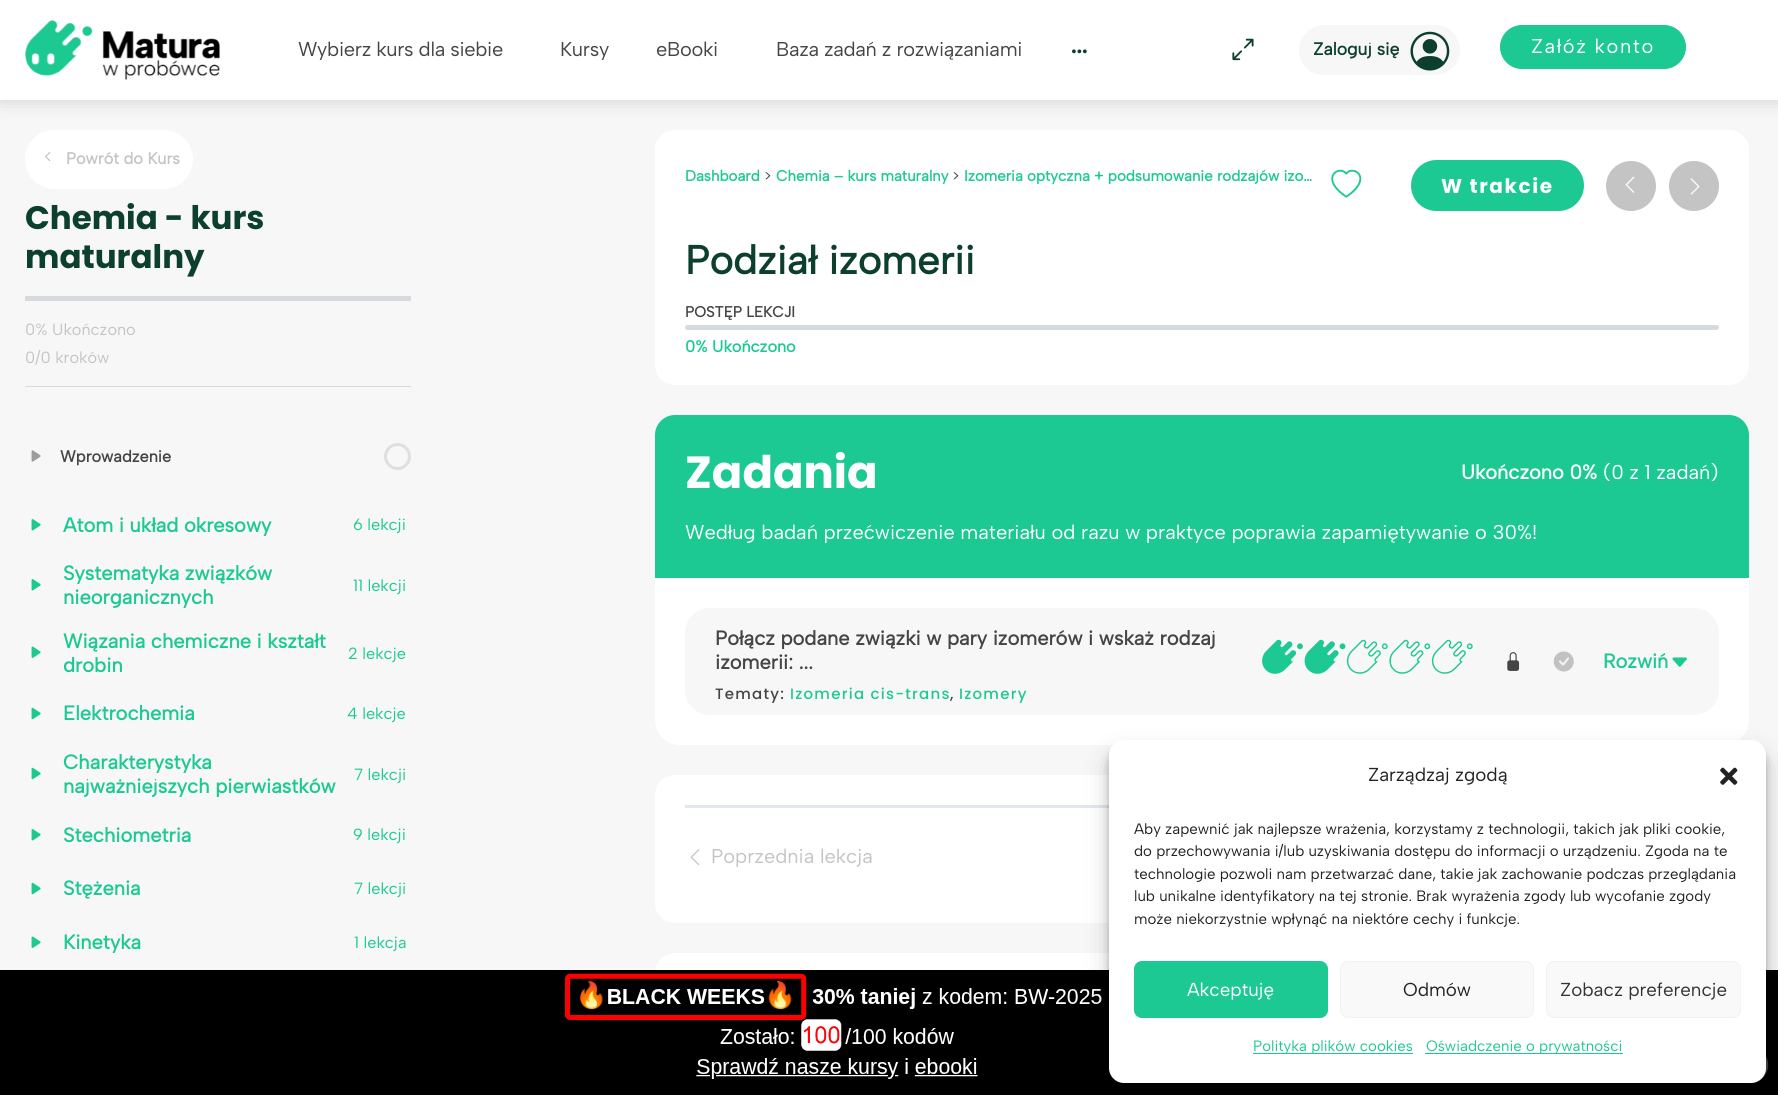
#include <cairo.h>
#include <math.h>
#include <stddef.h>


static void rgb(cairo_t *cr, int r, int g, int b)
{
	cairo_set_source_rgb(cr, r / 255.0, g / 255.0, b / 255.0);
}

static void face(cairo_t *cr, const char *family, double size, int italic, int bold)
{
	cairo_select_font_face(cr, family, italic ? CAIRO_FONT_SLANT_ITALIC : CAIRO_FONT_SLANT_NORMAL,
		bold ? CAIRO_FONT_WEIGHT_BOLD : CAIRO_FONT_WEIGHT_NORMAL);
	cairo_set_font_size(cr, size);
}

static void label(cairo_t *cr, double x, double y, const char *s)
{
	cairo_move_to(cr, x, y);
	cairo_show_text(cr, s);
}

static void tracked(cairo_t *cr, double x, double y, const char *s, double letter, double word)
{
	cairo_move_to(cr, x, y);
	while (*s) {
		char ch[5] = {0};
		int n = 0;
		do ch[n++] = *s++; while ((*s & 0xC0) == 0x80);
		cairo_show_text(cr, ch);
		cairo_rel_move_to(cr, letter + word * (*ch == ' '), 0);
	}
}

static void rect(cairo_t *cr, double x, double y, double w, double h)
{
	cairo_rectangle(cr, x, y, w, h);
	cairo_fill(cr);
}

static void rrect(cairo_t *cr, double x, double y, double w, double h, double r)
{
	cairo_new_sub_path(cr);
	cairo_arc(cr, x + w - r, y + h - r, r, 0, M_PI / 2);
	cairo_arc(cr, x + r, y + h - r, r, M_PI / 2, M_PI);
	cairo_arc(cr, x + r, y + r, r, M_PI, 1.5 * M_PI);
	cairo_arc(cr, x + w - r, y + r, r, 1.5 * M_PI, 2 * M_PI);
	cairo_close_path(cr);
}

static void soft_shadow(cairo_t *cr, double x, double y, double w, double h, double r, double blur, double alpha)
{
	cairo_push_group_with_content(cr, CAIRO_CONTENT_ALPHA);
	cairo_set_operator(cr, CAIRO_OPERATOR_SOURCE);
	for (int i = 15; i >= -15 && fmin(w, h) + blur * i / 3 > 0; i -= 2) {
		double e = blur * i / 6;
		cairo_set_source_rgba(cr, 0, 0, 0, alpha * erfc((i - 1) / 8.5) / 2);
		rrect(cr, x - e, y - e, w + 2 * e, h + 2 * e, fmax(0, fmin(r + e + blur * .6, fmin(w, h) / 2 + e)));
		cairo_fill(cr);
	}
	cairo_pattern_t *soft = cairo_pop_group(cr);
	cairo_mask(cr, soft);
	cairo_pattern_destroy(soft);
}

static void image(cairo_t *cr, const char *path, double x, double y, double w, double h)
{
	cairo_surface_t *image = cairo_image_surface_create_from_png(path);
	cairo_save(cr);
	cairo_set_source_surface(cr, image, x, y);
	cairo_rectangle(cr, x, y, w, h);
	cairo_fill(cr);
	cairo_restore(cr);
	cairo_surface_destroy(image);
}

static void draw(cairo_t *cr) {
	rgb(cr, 247, 247, 247);
	cairo_paint(cr);
	rgb(cr, 255, 255, 255);
	rrect(cr, 25, 130, 168, 59, 29.5);
	cairo_fill(cr);
	cairo_new_path(cr);
	cairo_move_to(cr, 675, 130);
	cairo_line_to(cr, 1729, 130);
	cairo_curve_to(cr, 1740, 130, 1749, 139, 1749, 150);
	cairo_line_to(cr, 1749, 284);
	cairo_line_to(cr, 655, 284);
	cairo_line_to(cr, 655, 150);
	cairo_curve_to(cr, 655, 139, 664, 130, 675, 130);
	cairo_close_path(cr);
	cairo_fill(cr);
	rgb(cr, 0, 0, 0);
	soft_shadow(cr, 0, 0, 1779, 100, 0, 10, 0.16);
	rgb(cr, 255, 255, 255);
	rect(cr, 0, 0, 1778, 100);
	image(cr, "image0.png", 25, 20, 195, 60);
	face(cr, "Albert Sans", 20, 0, 0);
	rgb(cr, 69, 69, 69);
	tracked(cr, 298, 56, "Wybierz kurs dla siebie", -0.3, 0);
	tracked(cr, 560, 56, "Kursy", -0.3, 0);
	tracked(cr, 656, 56, "eBooki", -0.3, 0);
	tracked(cr, 776, 56, "Baza zadań z rozwiązaniami", -0.3, 0);
	image(cr, "image1.png", 1072, 49, 15, 5);
	image(cr, "image2.png", 1232, 38, 22, 23);
	rgb(cr, 247, 247, 247);
	rrect(cr, 1299, 25, 161, 50, 25);
	cairo_fill(cr);
	face(cr, "Albert Sans", 17.5, 0, 1);
	rgb(cr, 13, 63, 47);
	label(cr, 1313, 55, "Zaloguj się");
	image(cr, "image3.png", 1410, 31, 40, 40);
	rgb(cr, 29, 201, 146);
	rrect(cr, 1500.5, 25.5, 185, 43, 21.5);
	cairo_fill_preserve(cr);
	cairo_set_line_width(cr, 1);
	cairo_stroke(cr);
	face(cr, "Albert Sans", 20, 0, 0);
	rgb(cr, 255, 255, 255);
	tracked(cr, 1531, 53, "Załóż konto", 1.6, 0);
	image(cr, "image4.png", 45, 151, 6, 11);
	face(cr, "Albert Sans", 16.25, 0, 1);
	rgb(cr, 196, 196, 196);
	label(cr, 66, 164, "Powrót do Kurs");
	face(cr, "Poppins", 32.5, 0, 1);
	rgb(cr, 13, 63, 47);
	label(cr, 25, 229, "Chemia - kurs");
	label(cr, 25, 268, "maturalny");
	rgb(cr, 214, 217, 221);
	rect(cr, 25, 386, 386, 1);
	rect(cr, 25, 296, 386, 5);
	face(cr, "Albert Sans", 16.25, 0, 0);
	rgb(cr, 196, 196, 196);
	label(cr, 25, 335, "0% Ukończono");
	label(cr, 25, 363, "0/0 kroków");
	image(cr, "image5.png", 31, 450, 10, 12);
	face(cr, "Albert Sans", 16.25, 0, 1);
	rgb(cr, 69, 69, 69);
	label(cr, 60, 462, "Wprowadzenie");
	cairo_new_path(cr);
	cairo_arc(cr, 397.5, 456.5, 12, 0, 2 * M_PI);
	rgb(cr, 222, 223, 226);
	cairo_set_line_width(cr, 3);
	cairo_stroke(cr);
	image(cr, "image6.png", 31, 519, 10, 12);
	face(cr, "Albert Sans", 20, 0, 1);
	rgb(cr, 29, 201, 146);
	label(cr, 63, 532, "Atom i układ okresowy");
	face(cr, "Albert Sans", 16.25, 0, 0);
	label(cr, 353, 530, "6 lekcji");
	image(cr, "image6.png", 31, 579, 10, 12);
	face(cr, "Albert Sans", 20, 0, 1);
	label(cr, 63, 580, "Systematyka związków");
	label(cr, 63, 604, "nieorganicznych");
	face(cr, "Albert Sans", 16.25, 0, 0);
	label(cr, 353, 591, "11 lekcji");
	image(cr, "image7.png", 31, 646, 10, 12);
	face(cr, "Albert Sans", 20, 0, 1);
	label(cr, 63, 648, "Wiązania chemiczne i kształt");
	label(cr, 63, 672, "drobin");
	face(cr, "Albert Sans", 16.25, 0, 0);
	label(cr, 348, 659, "2 lekcje");
	image(cr, "image8.png", 31, 707, 10, 13);
	face(cr, "Albert Sans", 20, 0, 1);
	label(cr, 63, 720, "Elektrochemia");
	face(cr, "Albert Sans", 16.25, 0, 0);
	label(cr, 347, 719, "4 lekcje");
	image(cr, "image8.png", 31, 767, 10, 13);
	face(cr, "Albert Sans", 20, 0, 1);
	label(cr, 63, 769, "Charakterystyka");
	label(cr, 63, 793, "najważniejszych pierwiastków");
	face(cr, "Albert Sans", 16.25, 0, 0);
	label(cr, 354, 780, "7 lekcji");
	image(cr, "image6.png", 31, 829, 10, 12);
	face(cr, "Albert Sans", 20, 0, 1);
	label(cr, 63, 842, "Stechiometria");
	face(cr, "Albert Sans", 16.25, 0, 0);
	label(cr, 353, 840, "9 lekcji");
	image(cr, "image8.png", 31, 882, 10, 13);
	face(cr, "Albert Sans", 20, 0, 1);
	label(cr, 63, 895, "Stężenia");
	face(cr, "Albert Sans", 16.25, 0, 0);
	label(cr, 354, 894, "7 lekcji");
	image(cr, "image7.png", 31, 936, 10, 12);
	face(cr, "Albert Sans", 20, 0, 1);
	label(cr, 63, 949, "Kinetyka");
	face(cr, "Albert Sans", 16.25, 0, 0);
	label(cr, 354, 948, "1 lekcja");
	face(cr, "Albert Sans", 15, 0, 1);
	label(cr, 685, 181, "Dashboard");
	face(cr, "Albert Sans", 15, 0, 0);
	rgb(cr, 69, 69, 69);
	label(cr, 764, 181, ">");
	face(cr, "Albert Sans", 15, 0, 1);
	rgb(cr, 29, 201, 146);
	label(cr, 776, 181, "Chemia – kurs maturalny");
	face(cr, "Albert Sans", 15, 0, 0);
	rgb(cr, 69, 69, 69);
	label(cr, 952, 181, ">");
	face(cr, "Albert Sans", 15, 0, 1);
	rgb(cr, 29, 201, 146);
	label(cr, 964, 181, "Izomeria optyczna + podsumowanie rodzajów izo…");
	image(cr, "image9.png", 1331, 169, 31, 29);
	rrect(cr, 1411, 160, 173, 51, 25.5);
	cairo_fill(cr);
	face(cr, "Poppins", 20, 0, 1);
	rgb(cr, 255, 255, 255);
	tracked(cr, 1441, 193, "W trakcie", 1.6, 0);
	rgb(cr, 196, 196, 196);
	cairo_new_path(cr);
	cairo_arc(cr, 1631, 186, 25, 0, 2 * M_PI);
	cairo_fill(cr);
	image(cr, "image10.png", 1625, 176, 10, 17);
	cairo_arc(cr, 1694, 186, 25, 0, 2 * M_PI);
	cairo_fill(cr);
	image(cr, "image11.png", 1690, 178, 10, 17);
	face(cr, "Albert Sans", 40, 0, 1);
	rgb(cr, 13, 63, 47);
	label(cr, 685, 274, "Podział izomerii");
	rgb(cr, 255, 255, 255);
	cairo_new_path(cr);
	cairo_move_to(cr, 655, 284);
	cairo_line_to(cr, 1749, 284);
	cairo_line_to(cr, 1749, 365);
	cairo_curve_to(cr, 1749, 376, 1740, 385, 1729, 385);
	cairo_line_to(cr, 675, 385);
	cairo_curve_to(cr, 664, 385, 655, 376, 655, 365);
	cairo_close_path(cr);
	cairo_fill(cr);
	face(cr, "Albert Sans", 15, 0, 1);
	rgb(cr, 69, 69, 69);
	label(cr, 685, 317, "POSTĘP LEKCJI");
	rgb(cr, 214, 217, 221);
	rrect(cr, 685, 325, 1034, 5, 2.5);
	cairo_fill(cr);
	face(cr, "Albert Sans", 16.25, 0, 1);
	rgb(cr, 29, 201, 146);
	label(cr, 685, 352, "0% Ukończono");
	rgb(cr, 255, 255, 255);
	rrect(cr, 655, 415, 1094, 330, 25);
	cairo_fill(cr);
	rgb(cr, 29, 201, 146);
	cairo_new_path(cr);
	cairo_move_to(cr, 675, 415);
	cairo_line_to(cr, 1729, 415);
	cairo_curve_to(cr, 1740, 415, 1749, 424, 1749, 435);
	cairo_line_to(cr, 1749, 578);
	cairo_line_to(cr, 655, 578);
	cairo_line_to(cr, 655, 435);
	cairo_curve_to(cr, 655, 424, 664, 415, 675, 415);
	cairo_close_path(cr);
	cairo_fill(cr);
	face(cr, "Poppins", 45, 0, 1);
	rgb(cr, 255, 255, 255);
	label(cr, 685, 488, "Zadania");
	face(cr, "Albert Sans", 20, 0, 1);
	label(cr, 1461, 479, "Ukończono 0%");
	face(cr, "Albert Sans", 20, 0, 0);
	label(cr, 1603, 479, "(0 z 1 zadań)");
	label(cr, 685, 539, "Według badań przećwiczenie materiału od razu w praktyce poprawia zapamiętywanie o 30%!");
	rgb(cr, 247, 247, 247);
	rrect(cr, 685, 608, 1034, 107, 25);
	cairo_fill(cr);
	face(cr, "Albert Sans", 20, 0, 1);
	rgb(cr, 69, 69, 69);
	label(cr, 715, 645, "Połącz podane związki w pary izomerów i wskaż rodzaj");
	label(cr, 715, 669, "izomerii: ...");
	face(cr, "Poppins Medium", 15, 0, 0);
	tracked(cr, 715, 699, "Tematy:", 1.25, 0);
	rgb(cr, 29, 201, 146);
	tracked(cr, 790, 699, "Izomeria cis-trans", 1.25, 0);
	rgb(cr, 69, 69, 69);
	tracked(cr, 950, 699, ",", 1.25, 0);
	rgb(cr, 29, 201, 146);
	tracked(cr, 959, 699, "Izomery", 1.25, 0);
	image(cr, "image12.png", 1262, 639, 41, 35);
	image(cr, "image13.png", 1304, 639, 42, 35);
	image(cr, "image14.png", 1346, 639, 42, 35);
	image(cr, "image15.png", 1389, 639, 42, 35);
	image(cr, "image14.png", 1431, 639, 42, 35);
	image(cr, "image16.png", 1507, 652, 13, 19);
	image(cr, "image17.png", 1553, 651, 21, 21);
	face(cr, "Albert Sans", 20, 0, 1);
	label(cr, 1603, 668, "Rozwiń");
	image(cr, "image18.png", 1672, 657, 15, 10);
	rgb(cr, 255, 255, 255);
	rrect(cr, 655, 775, 1094, 148, 20);
	cairo_fill(cr);
	rgb(cr, 226, 231, 237);
	rect(cr, 685, 805, 424, 3);
	image(cr, "image19.png", 690, 849, 10, 17);
	face(cr, "Albert Sans", 20, 0, 0);
	rgb(cr, 196, 196, 196);
	label(cr, 711, 863, "Poprzednia lekcja");
	rgb(cr, 255, 255, 255);
	rrect(cr, 655, 953, 1094, 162, 20);
	cairo_fill(cr);
	image(cr, "image21.png", 0, 970, 1778, 125);
	rgb(cr, 0, 0, 0);
	cairo_new_path(cr);
	cairo_move_to(cr, 1730, 1045);
	cairo_line_to(cr, 1770, 1045);
	cairo_curve_to(cr, 1773, 1045, 1775, 1047, 1775, 1050);
	cairo_line_to(cr, 1775, 1095);
	cairo_line_to(cr, 1725, 1095);
	cairo_line_to(cr, 1725, 1050);
	cairo_curve_to(cr, 1725, 1047, 1727, 1045, 1730, 1045);
	cairo_close_path(cr);
	cairo_fill(cr);
	image(cr, "image22.png", 1748, 1056, 21, 28);
	rgb(cr, 0, 0, 0);
	soft_shadow(cr, 1109, 748, 657, 342, 15, 4, 0.23);
	soft_shadow(cr, 1109, 753, 657, 342, 15, 12.5, 0.19);
	rgb(cr, 255, 255, 255);
	rrect(cr, 1109, 740, 657, 343, 15);
	cairo_fill(cr);
	face(cr, "Albert Sans", 18.75, 0, 0);
	rgb(cr, 34, 34, 34);
	label(cr, 1368, 781, "Zarządzaj zgodą");
	image(cr, "image20.png", 1720, 767, 18, 18);
	face(cr, "Albert Sans", 15, 0, 0);
	label(cr, 1134, 834, "Aby zapewnić jak najlepsze wrażenia, korzystamy z technologii, takich jak pliki cookie,");
	label(cr, 1134, 856, "do przechowywania i/lub uzyskiwania dostępu do informacji o urządzeniu. Zgoda na te");
	label(cr, 1134, 879, "technologie pozwoli nam przetwarzać dane, takie jak zachowanie podczas przeglądania");
	label(cr, 1134, 901, "lub unikalne identyfikatory na tej stronie. Brak wyrażenia zgody lub wycofanie zgody");
	label(cr, 1134, 924, "może niekorzystnie wpłynąć na niektóre cechy i funkcje.");
	rgb(cr, 29, 201, 146);
	rrect(cr, 1134.5, 961.5, 193, 56, 7.5);
	cairo_fill_preserve(cr);
	cairo_set_line_width(cr, 1);
	cairo_stroke(cr);
	face(cr, "Albert Sans", 18.75, 0, 0);
	rgb(cr, 255, 255, 255);
	label(cr, 1187, 996, "Akceptuję");
	rgb(cr, 249, 249, 249);
	rrect(cr, 1340.5, 961.5, 193, 56, 7.5);
	cairo_fill_preserve(cr);
	rgb(cr, 242, 242, 242);
	cairo_stroke(cr);
	rgb(cr, 34, 34, 34);
	label(cr, 1403, 996, "Odmów");
	rgb(cr, 249, 249, 249);
	rrect(cr, 1546.5, 961.5, 194, 56, 7.5);
	cairo_fill_preserve(cr);
	rgb(cr, 242, 242, 242);
	cairo_stroke(cr);
	rgb(cr, 51, 51, 51);
	label(cr, 1560, 996, "Zobacz preferencje");
	rgb(cr, 29, 201, 146);
	rect(cr, 1253, 1053, 160, 1);
	face(cr, "Albert Sans", 15, 0, 0);
	label(cr, 1253, 1051, "Polityka plików cookies");
	rect(cr, 1425, 1053, 198, 1);
	label(cr, 1426, 1051, "Oświadczenie o prywatności");
}

int main(void) {
	cairo_surface_t *surface = cairo_image_surface_create(CAIRO_FORMAT_RGB24, 1778, 1095);
	cairo_t *cr = cairo_create(surface);
	cairo_font_options_t *options = cairo_font_options_create();
	cairo_font_options_set_hint_metrics(options, CAIRO_HINT_METRICS_OFF);
	cairo_font_options_set_hint_style(options, CAIRO_HINT_STYLE_NONE);
	cairo_set_font_options(cr, options);
	cairo_set_miter_limit(cr, 4);
	draw(cr);
	cairo_surface_write_to_png(surface, "render.png");
	cairo_font_options_destroy(options);
	cairo_destroy(cr);
	cairo_surface_destroy(surface);
	return 0;
}
